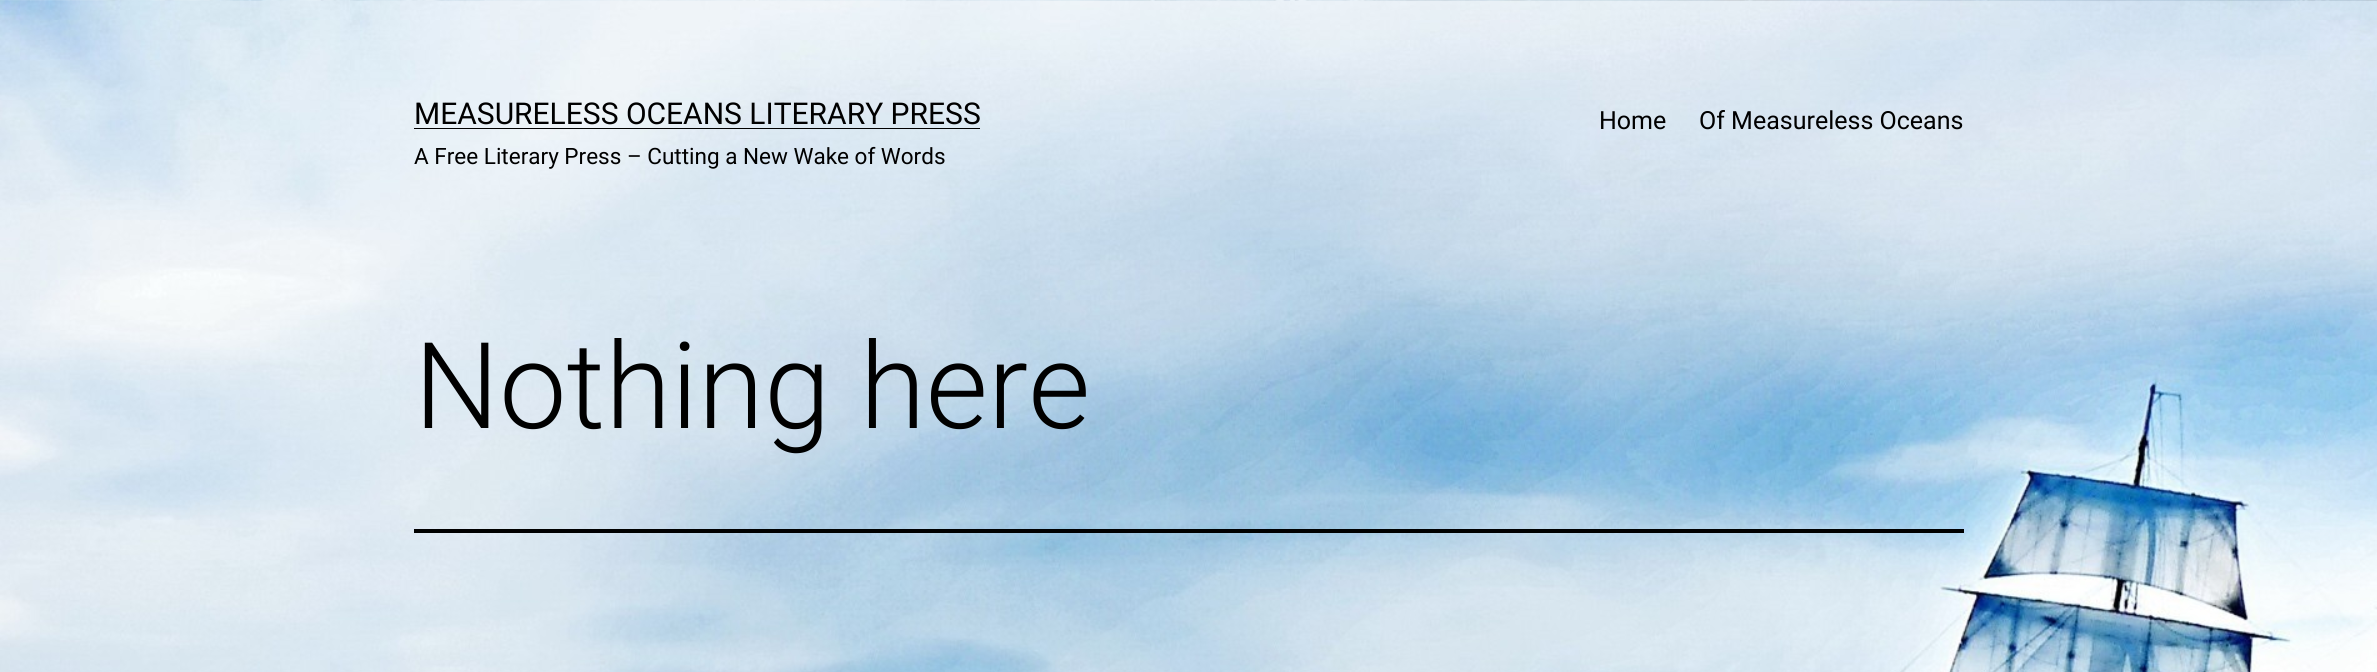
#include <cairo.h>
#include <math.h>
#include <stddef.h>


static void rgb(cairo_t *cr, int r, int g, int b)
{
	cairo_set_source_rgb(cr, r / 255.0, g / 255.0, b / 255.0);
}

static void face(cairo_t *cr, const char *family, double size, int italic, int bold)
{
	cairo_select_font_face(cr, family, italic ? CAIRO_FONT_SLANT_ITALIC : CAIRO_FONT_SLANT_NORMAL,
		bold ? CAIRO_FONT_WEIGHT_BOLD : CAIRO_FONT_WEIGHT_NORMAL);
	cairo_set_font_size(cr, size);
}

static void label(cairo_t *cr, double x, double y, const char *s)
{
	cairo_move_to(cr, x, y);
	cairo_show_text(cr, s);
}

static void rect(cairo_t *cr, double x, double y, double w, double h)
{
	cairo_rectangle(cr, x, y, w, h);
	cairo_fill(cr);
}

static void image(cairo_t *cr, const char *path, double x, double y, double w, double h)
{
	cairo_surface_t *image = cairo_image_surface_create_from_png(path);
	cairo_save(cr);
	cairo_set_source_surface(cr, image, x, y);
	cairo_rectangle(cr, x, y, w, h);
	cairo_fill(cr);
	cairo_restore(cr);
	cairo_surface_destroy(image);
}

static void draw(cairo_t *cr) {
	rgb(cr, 255, 255, 255);
	cairo_paint(cr);
	image(cr, "image0.png", 0, 0, 2377, 672);
	face(cr, "Roboto", 30, 0, 0);
	rgb(cr, 0, 0, 0);
	label(cr, 414, 124, "MEASURELESS OCEANS LITERARY PRESS");
	rect(cr, 414, 128, 566, 1);
	face(cr, "Roboto", 22.5, 0, 0);
	label(cr, 414, 164, "A Free Literary Press – Cutting a New Wake of Words");
	face(cr, "Roboto", 25, 0, 0);
	label(cr, 1599, 129, "Home");
	label(cr, 1699, 129, "Of Measureless Oceans");
	rect(cr, 414, 529, 1550, 4);
	face(cr, "Roboto Light", 120, 0, 0);
	label(cr, 414, 428, "Nothing here");
}

int main(void) {
	cairo_surface_t *surface = cairo_image_surface_create(CAIRO_FORMAT_RGB24, 2377, 672);
	cairo_t *cr = cairo_create(surface);
	cairo_font_options_t *options = cairo_font_options_create();
	cairo_font_options_set_hint_metrics(options, CAIRO_HINT_METRICS_OFF);
	cairo_font_options_set_hint_style(options, CAIRO_HINT_STYLE_NONE);
	cairo_set_font_options(cr, options);
	cairo_set_miter_limit(cr, 4);
	draw(cr);
	cairo_surface_write_to_png(surface, "render.png");
	cairo_font_options_destroy(options);
	cairo_destroy(cr);
	cairo_surface_destroy(surface);
	return 0;
}
